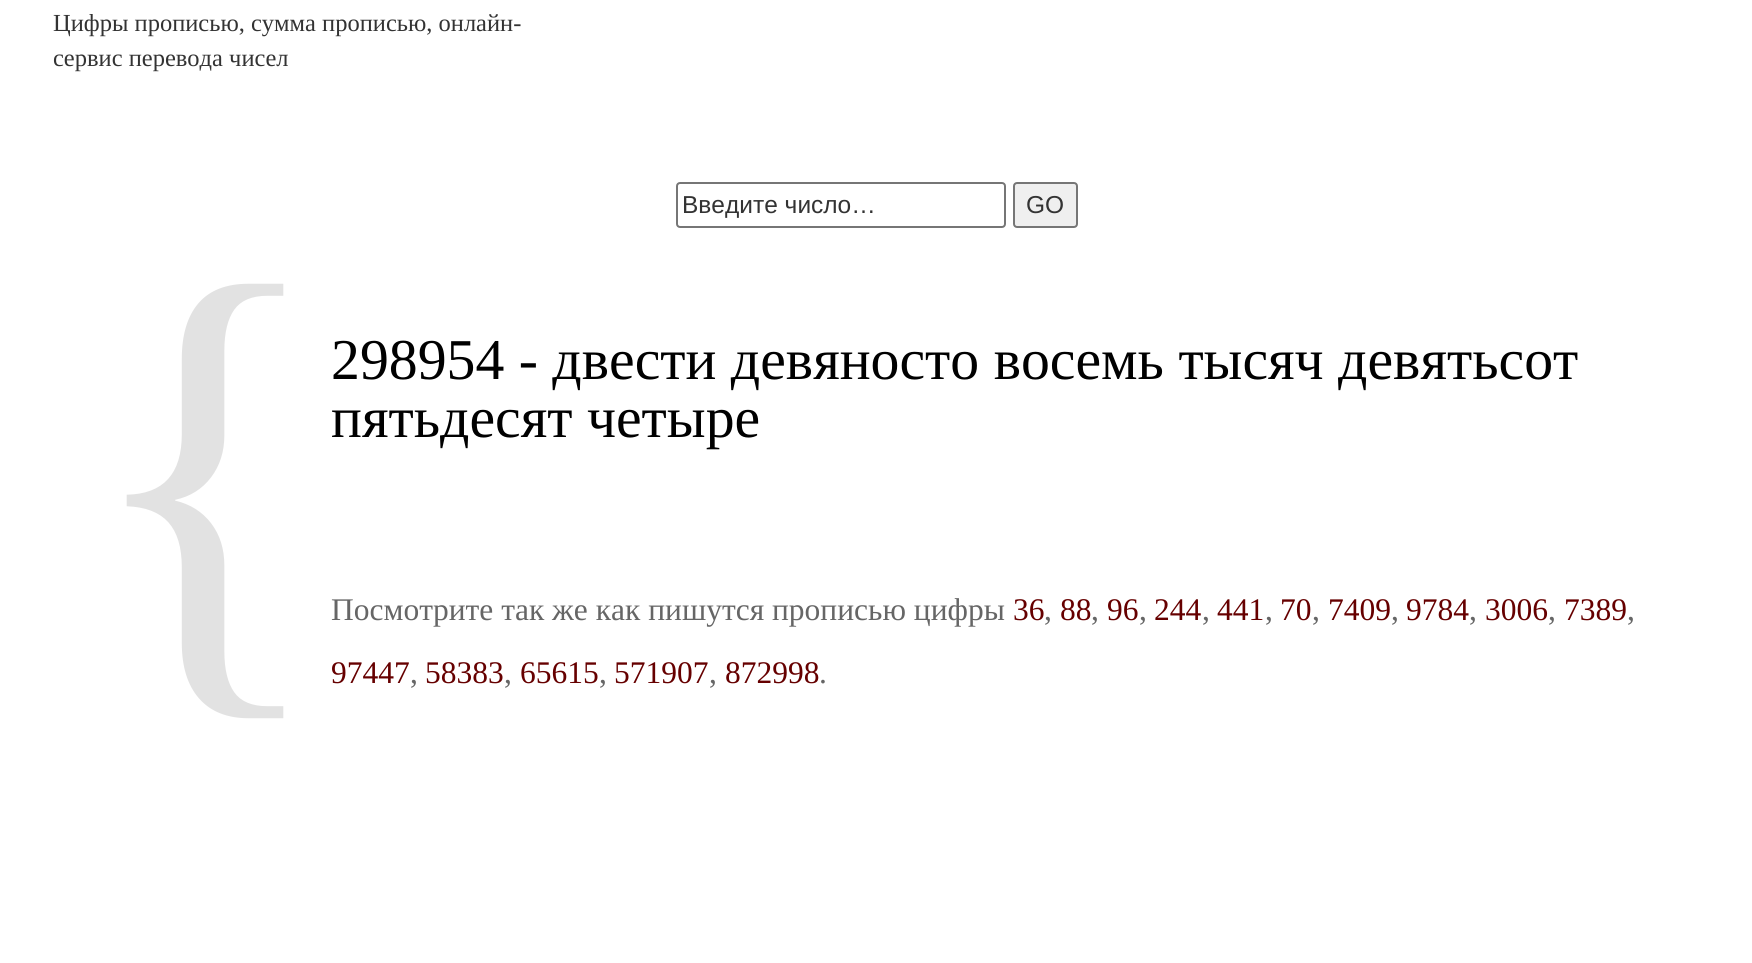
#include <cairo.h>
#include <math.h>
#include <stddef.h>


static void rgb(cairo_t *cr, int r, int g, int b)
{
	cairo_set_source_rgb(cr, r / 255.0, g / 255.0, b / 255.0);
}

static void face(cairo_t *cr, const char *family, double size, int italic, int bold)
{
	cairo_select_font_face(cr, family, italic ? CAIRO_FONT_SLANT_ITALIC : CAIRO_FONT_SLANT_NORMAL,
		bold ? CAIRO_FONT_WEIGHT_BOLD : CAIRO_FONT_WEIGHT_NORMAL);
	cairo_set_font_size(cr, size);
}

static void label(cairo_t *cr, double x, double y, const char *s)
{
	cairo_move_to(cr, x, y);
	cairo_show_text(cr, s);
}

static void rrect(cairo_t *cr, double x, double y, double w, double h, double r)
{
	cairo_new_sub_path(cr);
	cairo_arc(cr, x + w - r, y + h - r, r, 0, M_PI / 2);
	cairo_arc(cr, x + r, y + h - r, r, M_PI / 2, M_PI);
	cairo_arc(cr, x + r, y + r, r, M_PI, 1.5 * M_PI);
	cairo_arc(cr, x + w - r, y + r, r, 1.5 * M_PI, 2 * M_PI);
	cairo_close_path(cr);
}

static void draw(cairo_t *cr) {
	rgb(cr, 255, 255, 255);
	cairo_paint(cr);
	face(cr, "Liberation Serif", 24.5, 0, 0);
	rgb(cr, 51, 51, 51);
	label(cr, 53, 31, "Цифры прописью, сумма прописью, онлайн-");
	label(cr, 53, 66, "сервис перевода чисел");
	rrect(cr, 677, 183, 328, 44, 3);
	rgb(cr, 118, 118, 118);
	cairo_stroke(cr);
	face(cr, "Liberation Sans", 24.5, 0, 0);
	rgb(cr, 51, 51, 51);
	label(cr, 682, 213, "Введите число…");
	rgb(cr, 239, 239, 239);
	rrect(cr, 1014, 183, 63, 44, 3);
	cairo_fill_preserve(cr);
	rgb(cr, 118, 118, 118);
	cairo_stroke(cr);
	rgb(cr, 51, 51, 51);
	label(cr, 1026, 213, "GO");
	face(cr, "Liberation Serif", 525, 0, 0);
	rgb(cr, 226, 226, 226);
	label(cr, 79, 648, "{");
	face(cr, "Liberation Serif", 57.75, 0, 0);
	rgb(cr, 0, 0, 0);
	label(cr, 331, 379, "298954 - двести девяносто восемь тысяч девятьсот");
	label(cr, 331, 437, "пятьдесят четыре");
	face(cr, "Liberation Serif", 31.5, 0, 0);
	rgb(cr, 102, 102, 102);
	label(cr, 331, 620, "Посмотрите так же как пишутся прописью цифры");
	rgb(cr, 102, 0, 0);
	label(cr, 1013, 620, "36");
	rgb(cr, 102, 102, 102);
	label(cr, 1044, 620, ",");
	rgb(cr, 102, 0, 0);
	label(cr, 1060, 620, "88");
	rgb(cr, 102, 102, 102);
	label(cr, 1091, 620, ",");
	rgb(cr, 102, 0, 0);
	label(cr, 1107, 620, "96");
	rgb(cr, 102, 102, 102);
	label(cr, 1139, 620, ",");
	rgb(cr, 102, 0, 0);
	label(cr, 1154, 620, "244");
	rgb(cr, 102, 102, 102);
	label(cr, 1202, 620, ",");
	rgb(cr, 102, 0, 0);
	label(cr, 1217, 620, "441");
	rgb(cr, 102, 102, 102);
	label(cr, 1265, 620, ",");
	rgb(cr, 102, 0, 0);
	label(cr, 1280, 620, "70");
	rgb(cr, 102, 102, 102);
	label(cr, 1312, 620, ",");
	rgb(cr, 102, 0, 0);
	label(cr, 1328, 620, "7409");
	rgb(cr, 102, 102, 102);
	label(cr, 1391, 620, ",");
	rgb(cr, 102, 0, 0);
	label(cr, 1406, 620, "9784");
	rgb(cr, 102, 102, 102);
	label(cr, 1469, 620, ",");
	rgb(cr, 102, 0, 0);
	label(cr, 1485, 620, "3006");
	rgb(cr, 102, 102, 102);
	label(cr, 1548, 620, ",");
	rgb(cr, 102, 0, 0);
	label(cr, 1564, 620, "7389");
	rgb(cr, 102, 102, 102);
	label(cr, 1627, 620, ",");
	rgb(cr, 102, 0, 0);
	label(cr, 331, 683, "97447");
	rgb(cr, 102, 102, 102);
	label(cr, 410, 683, ",");
	rgb(cr, 102, 0, 0);
	label(cr, 425, 683, "58383");
	rgb(cr, 102, 102, 102);
	label(cr, 504, 683, ",");
	rgb(cr, 102, 0, 0);
	label(cr, 520, 683, "65615");
	rgb(cr, 102, 102, 102);
	label(cr, 599, 683, ",");
	rgb(cr, 102, 0, 0);
	label(cr, 614, 683, "571907");
	rgb(cr, 102, 102, 102);
	label(cr, 709, 683, ",");
	rgb(cr, 102, 0, 0);
	label(cr, 725, 683, "872998");
	rgb(cr, 102, 102, 102);
	label(cr, 819, 683, ".");
}

int main(void) {
	cairo_surface_t *surface = cairo_image_surface_create(CAIRO_FORMAT_RGB24, 1752, 963);
	cairo_t *cr = cairo_create(surface);
	cairo_font_options_t *options = cairo_font_options_create();
	cairo_font_options_set_hint_metrics(options, CAIRO_HINT_METRICS_OFF);
	cairo_font_options_set_hint_style(options, CAIRO_HINT_STYLE_NONE);
	cairo_set_font_options(cr, options);
	cairo_set_miter_limit(cr, 4);
	draw(cr);
	cairo_surface_write_to_png(surface, "render.png");
	cairo_font_options_destroy(options);
	cairo_destroy(cr);
	cairo_surface_destroy(surface);
	return 0;
}
